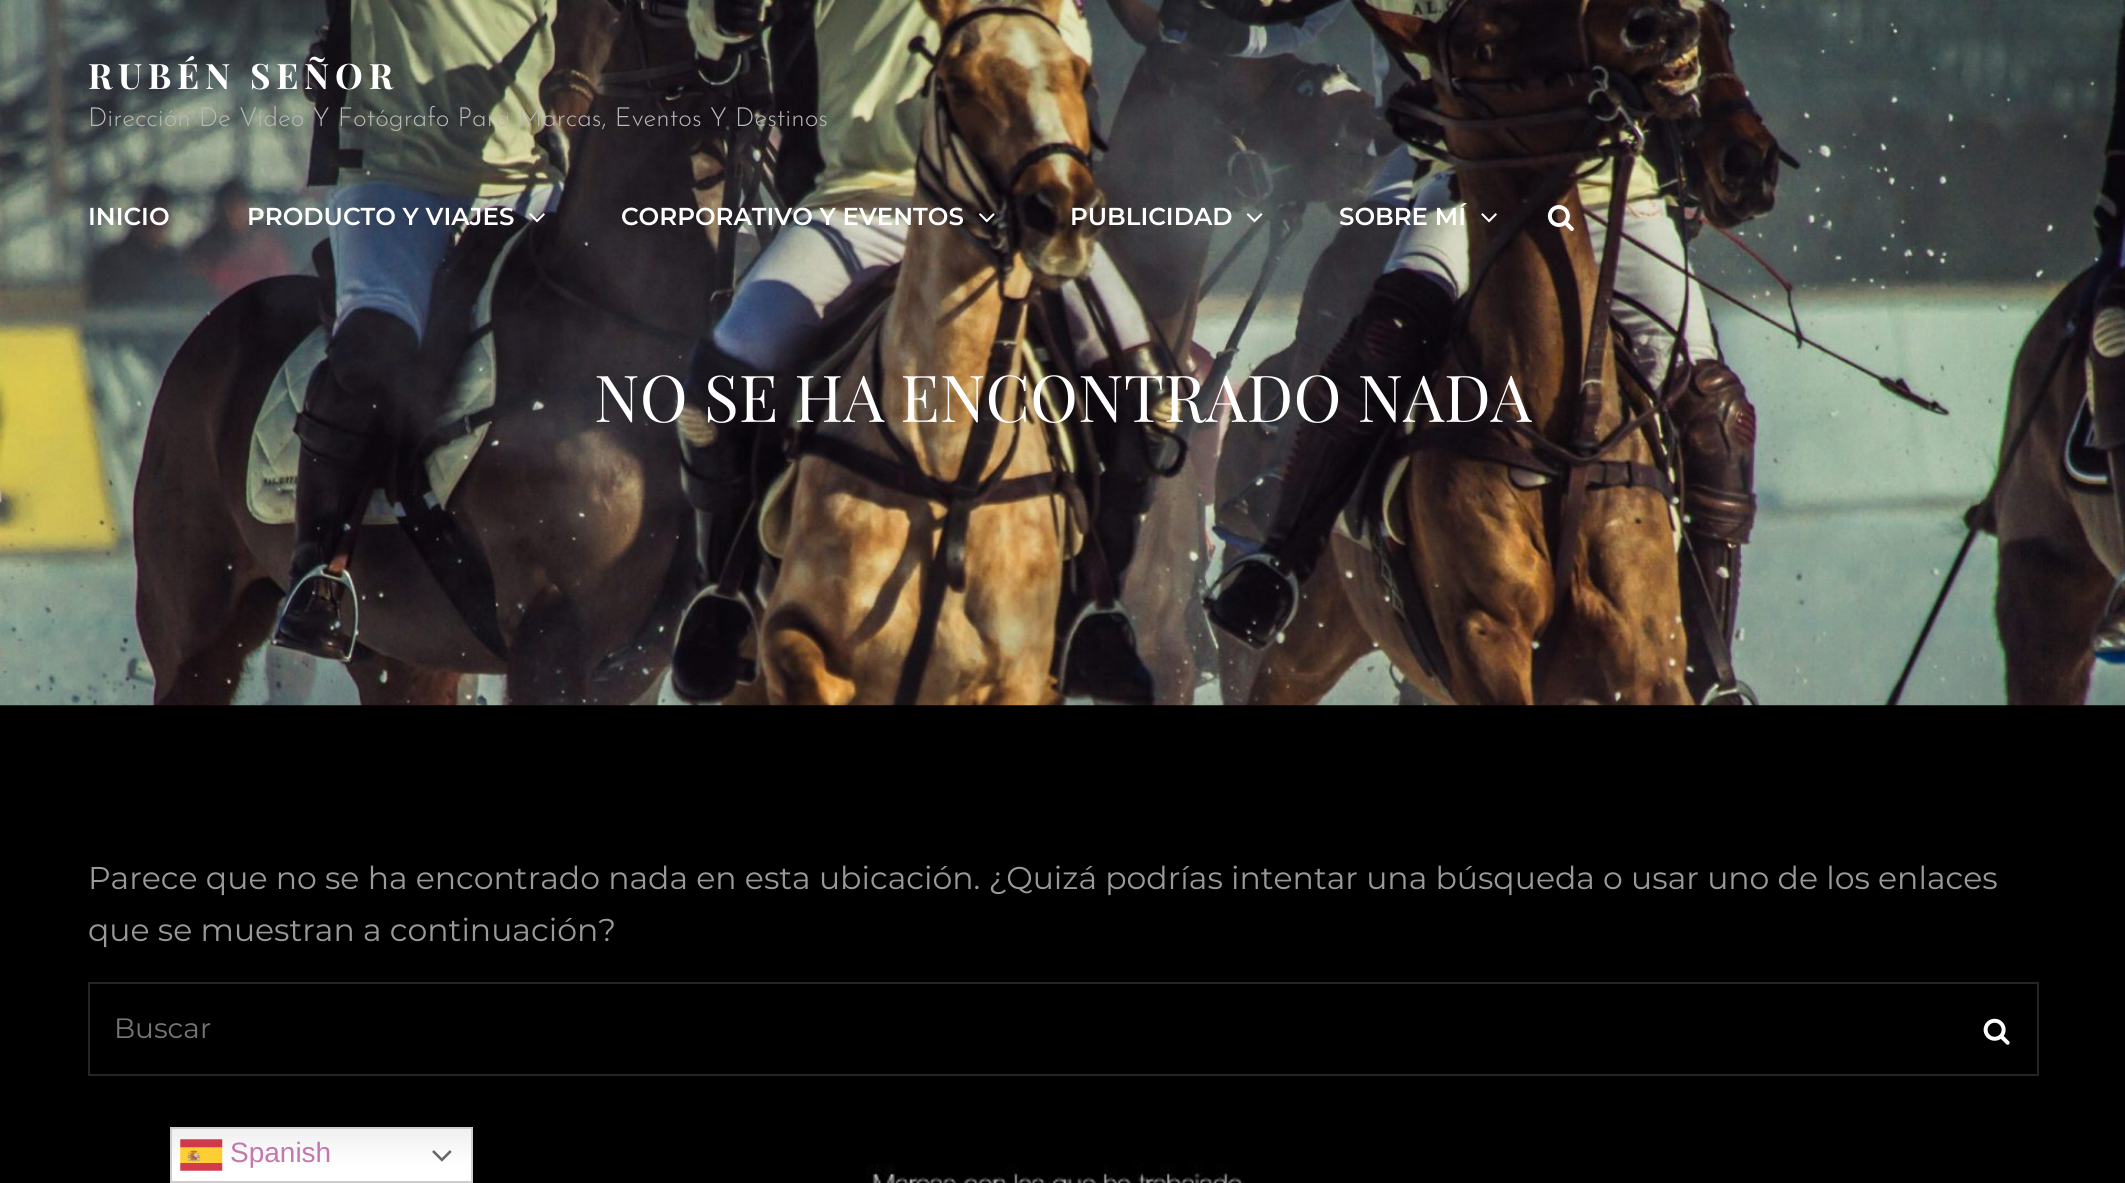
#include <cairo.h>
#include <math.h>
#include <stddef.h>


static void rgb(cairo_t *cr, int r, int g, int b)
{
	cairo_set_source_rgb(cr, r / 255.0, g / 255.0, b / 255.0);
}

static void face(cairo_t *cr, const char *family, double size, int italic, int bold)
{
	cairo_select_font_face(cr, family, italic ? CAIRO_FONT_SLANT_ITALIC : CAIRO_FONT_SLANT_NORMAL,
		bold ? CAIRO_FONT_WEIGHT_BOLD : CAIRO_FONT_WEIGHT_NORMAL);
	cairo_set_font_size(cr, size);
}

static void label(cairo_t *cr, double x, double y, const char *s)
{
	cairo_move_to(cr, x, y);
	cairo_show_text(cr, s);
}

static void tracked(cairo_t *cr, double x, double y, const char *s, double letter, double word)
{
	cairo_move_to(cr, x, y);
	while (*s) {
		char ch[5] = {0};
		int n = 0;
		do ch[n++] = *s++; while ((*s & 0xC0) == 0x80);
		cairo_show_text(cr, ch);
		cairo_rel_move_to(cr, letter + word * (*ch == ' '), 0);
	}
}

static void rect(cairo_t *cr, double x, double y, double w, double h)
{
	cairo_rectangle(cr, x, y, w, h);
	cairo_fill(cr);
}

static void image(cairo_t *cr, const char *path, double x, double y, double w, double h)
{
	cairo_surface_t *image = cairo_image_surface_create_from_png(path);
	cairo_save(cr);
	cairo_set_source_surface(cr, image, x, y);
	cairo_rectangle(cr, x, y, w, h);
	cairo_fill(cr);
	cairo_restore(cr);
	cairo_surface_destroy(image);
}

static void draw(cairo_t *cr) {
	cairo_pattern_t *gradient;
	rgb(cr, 0, 0, 0);
	cairo_paint(cr);
	image(cr, "image5.png", 0, 0, 2125, 706);
	face(cr, "Playfair Display", 35, 0, 1);
	rgb(cr, 255, 255, 255);
	tracked(cr, 88, 89, "RUBÉN SEÑOR", 5.75, 0);
	face(cr, "Josefin Sans Light", 26.25, 0, 0);
	rgb(cr, 183, 184, 182);
	label(cr, 88, 126, "Dirección De Vídeo Y Fotógrafo Para Marcas, Eventos Y Destinos");
	face(cr, "Montserrat SemiBold", 24.5, 0, 0);
	rgb(cr, 255, 255, 255);
	label(cr, 88, 225, "INICIO");
	label(cr, 247, 225, "PRODUCTO Y VIAJES");
	image(cr, "image0.png", 529, 213, 16, 10);
	label(cr, 621, 225, "CORPORATIVO Y EVENTOS");
	image(cr, "image1.png", 979, 213, 16, 10);
	label(cr, 1070, 225, "PUBLICIDAD");
	image(cr, "image2.png", 1246, 213, 17, 10);
	label(cr, 1339, 225, "SOBRE MÍ");
	image(cr, "image3.png", 1481, 213, 16, 10);
	image(cr, "image4.png", 1547, 205, 27, 26);
	face(cr, "Playfair Display", 64.75, 0, 0);
	label(cr, 594, 422, "NO SE HA ENCONTRADO NADA");
	face(cr, "Montserrat", 31.5, 0, 0);
	rgb(cr, 153, 153, 153);
	label(cr, 88, 889, "Parece que no se ha encontrado nada en esta ubicación. ¿Quizá podrías intentar una búsqueda o usar uno de los enlaces");
	label(cr, 88, 941, "que se muestran a continuación?");
	cairo_rectangle(cr, 89, 983, 1949, 92);
	rgb(cr, 37, 37, 37);
	cairo_stroke(cr);
	face(cr, "Montserrat", 28, 0, 0);
	rgb(cr, 117, 117, 117);
	label(cr, 114, 1038, "Buscar");
	image(cr, "image6.png", 1983, 1018, 27, 27);
	image(cr, "image7.png", 866, 1164, 378, 19);
	gradient = cairo_pattern_create_linear(321, 1127, 321, 1183);
	cairo_pattern_add_color_stop_rgba(gradient, 0, 0.937, 0.937, 0.937, 1);
	cairo_pattern_add_color_stop_rgba(gradient, 0.7, 1, 1, 1, 1);
	cairo_set_source(cr, gradient);
	cairo_pattern_destroy(gradient);
	rect(cr, 172, 1129, 299, 52);
	cairo_rectangle(cr, 171, 1128, 301, 54);
	rgb(cr, 204, 204, 204);
	cairo_stroke(cr);
	image(cr, "image8.png", 180, 1139, 43, 32);
	face(cr, "Liberation Sans", 28, 0, 0);
	rgb(cr, 196, 119, 175);
	label(cr, 230, 1162, "Spanish");
	image(cr, "image9.png", 432, 1150, 20, 12);
}

int main(void) {
	cairo_surface_t *surface = cairo_image_surface_create(CAIRO_FORMAT_RGB24, 2125, 1183);
	cairo_t *cr = cairo_create(surface);
	cairo_font_options_t *options = cairo_font_options_create();
	cairo_font_options_set_hint_metrics(options, CAIRO_HINT_METRICS_OFF);
	cairo_font_options_set_hint_style(options, CAIRO_HINT_STYLE_NONE);
	cairo_set_font_options(cr, options);
	cairo_set_miter_limit(cr, 4);
	draw(cr);
	cairo_surface_write_to_png(surface, "render.png");
	cairo_font_options_destroy(options);
	cairo_destroy(cr);
	cairo_surface_destroy(surface);
	return 0;
}
